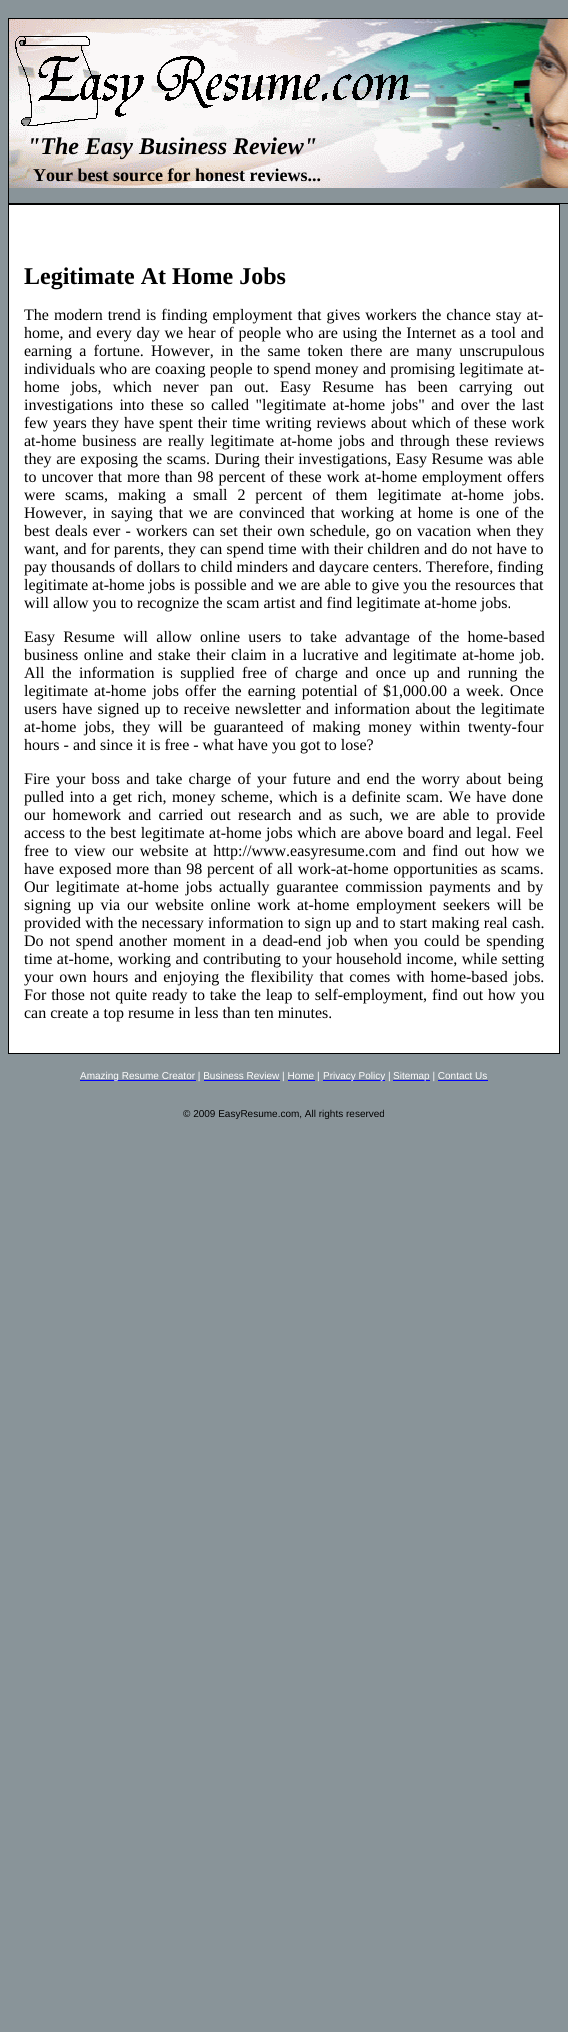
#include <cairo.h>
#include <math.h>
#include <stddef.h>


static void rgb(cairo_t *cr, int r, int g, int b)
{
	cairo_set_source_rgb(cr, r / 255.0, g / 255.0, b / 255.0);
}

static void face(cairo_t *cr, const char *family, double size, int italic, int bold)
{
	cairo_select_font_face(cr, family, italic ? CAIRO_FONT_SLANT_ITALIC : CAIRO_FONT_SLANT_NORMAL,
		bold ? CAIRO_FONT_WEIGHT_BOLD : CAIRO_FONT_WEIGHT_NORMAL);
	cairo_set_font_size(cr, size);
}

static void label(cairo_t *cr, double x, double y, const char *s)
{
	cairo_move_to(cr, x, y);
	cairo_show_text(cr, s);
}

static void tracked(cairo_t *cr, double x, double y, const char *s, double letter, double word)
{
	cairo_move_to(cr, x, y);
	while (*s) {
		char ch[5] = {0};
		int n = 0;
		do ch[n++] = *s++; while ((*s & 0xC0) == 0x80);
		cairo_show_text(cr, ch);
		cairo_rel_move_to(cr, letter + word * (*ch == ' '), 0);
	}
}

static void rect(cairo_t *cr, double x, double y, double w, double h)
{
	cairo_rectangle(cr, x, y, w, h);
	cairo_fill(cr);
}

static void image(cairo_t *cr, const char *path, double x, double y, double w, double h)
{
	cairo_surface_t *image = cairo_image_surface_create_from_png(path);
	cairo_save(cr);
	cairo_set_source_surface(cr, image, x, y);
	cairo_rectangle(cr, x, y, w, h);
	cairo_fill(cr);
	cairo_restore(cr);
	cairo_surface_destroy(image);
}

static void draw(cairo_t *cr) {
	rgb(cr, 137, 148, 153);
	cairo_paint(cr);
	image(cr, "image0.png", 9, 19, 559, 169);
	rgb(cr, 0, 0, 0);
	rect(cr, 8, 18, 560, 1);
	rect(cr, 8, 203, 560, 1);
	rect(cr, 8, 18, 1, 186);
	image(cr, "image1.png", 15, 36, 395, 90);
	face(cr, "Liberation Serif", 24, 1, 1);
	label(cr, 27, 154, "\"The Easy Business Review\"");
	face(cr, "Liberation Serif", 18, 0, 1);
	label(cr, 33, 181, "Your best source for honest reviews...");
	rgb(cr, 255, 255, 255);
	rect(cr, 9, 205, 550, 848);
	rgb(cr, 0, 0, 0);
	rect(cr, 8, 204, 552, 1);
	rect(cr, 559, 204, 1, 850);
	rect(cr, 8, 1053, 552, 1);
	rect(cr, 8, 204, 1, 850);
	face(cr, "Liberation Serif", 24, 0, 1);
	label(cr, 24, 284, "Legitimate At Home Jobs");
	face(cr, "Liberation Serif", 16, 0, 0);
	tracked(cr, 24, 320, "The modern trend is finding employment that gives workers the chance stay at-", 0, 1);
	tracked(cr, 24, 338, "home, and every day we hear of people who are using the Internet as a tool and", 0, 0.8);
	tracked(cr, 24, 356, "earning a fortune. However, in the same token there are many unscrupulous", 0, 3.25);
	tracked(cr, 24, 374, "individuals who are coaxing people to spend money and promising legitimate at-", 0, 0.25);
	tracked(cr, 24, 392, "home jobs, which never pan out. Easy Resume has been carrying out", 0, 7.25);
	tracked(cr, 24, 410, "investigations into these so called \"legitimate at-home jobs\" and over the last", 0, 2.5);
	tracked(cr, 24, 428, "few years they have spent their time writing reviews about which of these work", 0, 0.9);
	tracked(cr, 24, 446, "at-home business are really legitimate at-home jobs and through these reviews", 0, 1.9);
	tracked(cr, 24, 464, "they are exposing the scams. During their investigations, Easy Resume was able", 0, 0.6);
	tracked(cr, 24, 482, "to uncover that more than 98 percent of these work at-home employment offers", 0, 1);
	tracked(cr, 24, 500, "were scams, making a small 2 percent of them legitimate at-home jobs.", 0, 5.9);
	tracked(cr, 24, 518, "However, in saying that we are convinced that working at home is one of the", 0, 2);
	tracked(cr, 24, 536, "best deals ever - workers can set their own schedule, go on vacation when they", 0, 1.1);
	tracked(cr, 24, 554, "want, and for parents, they can spend time with their children and do not have to", 0, 0.3);
	label(cr, 24, 572, "pay thousands of dollars to child minders and daycare centers. Therefore, finding");
	tracked(cr, 24, 590, "legitimate at-home jobs is possible and we are able to give you the resources that", 0, 0.1);
	label(cr, 24, 608, "will allow you to recognize the scam artist and find legitimate at-home jobs.");
	tracked(cr, 24, 642, "Easy Resume will allow online users to take advantage of the home-based", 0, 4.25);
	tracked(cr, 24, 660, "business online and stake their claim in a lucrative and legitimate at-home job.", 0, 1.5);
	tracked(cr, 24, 678, "All the information is supplied free of charge and once up and running the", 0, 3.5);
	tracked(cr, 24, 696, "legitimate at-home jobs offer the earning potential of $1,000.00 a week. Once", 0, 2);
	tracked(cr, 24, 714, "users have signed up to receive newsletter and information about the legitimate", 0, 1.25);
	tracked(cr, 24, 732, "at-home jobs, they will be guaranteed of making money within twenty-four", 0, 3.75);
	label(cr, 24, 750, "hours - and since it is free - what have you got to lose?");
	tracked(cr, 24, 784, "Fire your boss and take charge of your future and end the worry about being", 0, 2.25);
	tracked(cr, 24, 802, "pulled into a get rich, money scheme, which is a definite scam. We have done", 0, 1.5);
	tracked(cr, 24, 820, "our homework and carried out research and as such, we are able to provide", 0, 3.25);
	tracked(cr, 24, 838, "access to the best legitimate at-home jobs which are above board and legal. Feel", 0, 0.5);
	tracked(cr, 24, 856, "free to view our website at http://www.easyresume.com and find out how we", 0, 2.5);
	tracked(cr, 24, 874, "have exposed more than 98 percent of all work-at-home opportunities as scams.", 0, 0.8);
	tracked(cr, 24, 892, "Our legitimate at-home jobs actually guarantee commission payments and by", 0, 2.75);
	tracked(cr, 24, 910, "signing up via our website online work at-home employment seekers will be", 0, 2.75);
	tracked(cr, 24, 928, "provided with the necessary information to sign up and to start making real cash.", 0, 0.25);
	tracked(cr, 24, 946, "Do not spend another moment in a dead-end job when you could be spending", 0, 1.9);
	tracked(cr, 24, 964, "time at-home, working and contributing to your household income, while setting", 0, 0.4);
	tracked(cr, 24, 982, "your own hours and enjoying the flexibility that comes with home-based jobs.", 0, 1.9);
	tracked(cr, 24, 1000, "For those not quite ready to take the leap to self-employment, find out how you", 0, 0.9);
	label(cr, 24, 1018, "can create a top resume in less than ten minutes.");
	rgb(cr, 0, 0, 255);
	rect(cr, 80, 1080, 116, 1);
	face(cr, "Liberation Sans", 10, 0, 0);
	rgb(cr, 255, 255, 255);
	label(cr, 80, 1079, "Amazing Resume Creator | Business Review | Home |");
	rgb(cr, 0, 0, 255);
	rect(cr, 204, 1080, 76, 1);
	rect(cr, 288, 1080, 27, 1);
	rect(cr, 323, 1080, 62, 1);
	rgb(cr, 255, 255, 255);
	label(cr, 323, 1079, "Privacy Policy |");
	rgb(cr, 0, 0, 255);
	rect(cr, 393, 1080, 37, 1);
	rgb(cr, 255, 255, 255);
	label(cr, 393, 1079, "Sitemap | Contact Us");
	rgb(cr, 0, 0, 255);
	rect(cr, 438, 1080, 50, 1);
	rgb(cr, 0, 0, 0);
	label(cr, 183, 1117, "© 2009 EasyResume.com, All rights reserved");
}

int main(void) {
	cairo_surface_t *surface = cairo_image_surface_create(CAIRO_FORMAT_RGB24, 568, 2032);
	cairo_t *cr = cairo_create(surface);
	cairo_font_options_t *options = cairo_font_options_create();
	cairo_font_options_set_hint_metrics(options, CAIRO_HINT_METRICS_OFF);
	cairo_font_options_set_hint_style(options, CAIRO_HINT_STYLE_NONE);
	cairo_set_font_options(cr, options);
	cairo_set_miter_limit(cr, 4);
	draw(cr);
	cairo_surface_write_to_png(surface, "render.png");
	cairo_font_options_destroy(options);
	cairo_destroy(cr);
	cairo_surface_destroy(surface);
	return 0;
}
